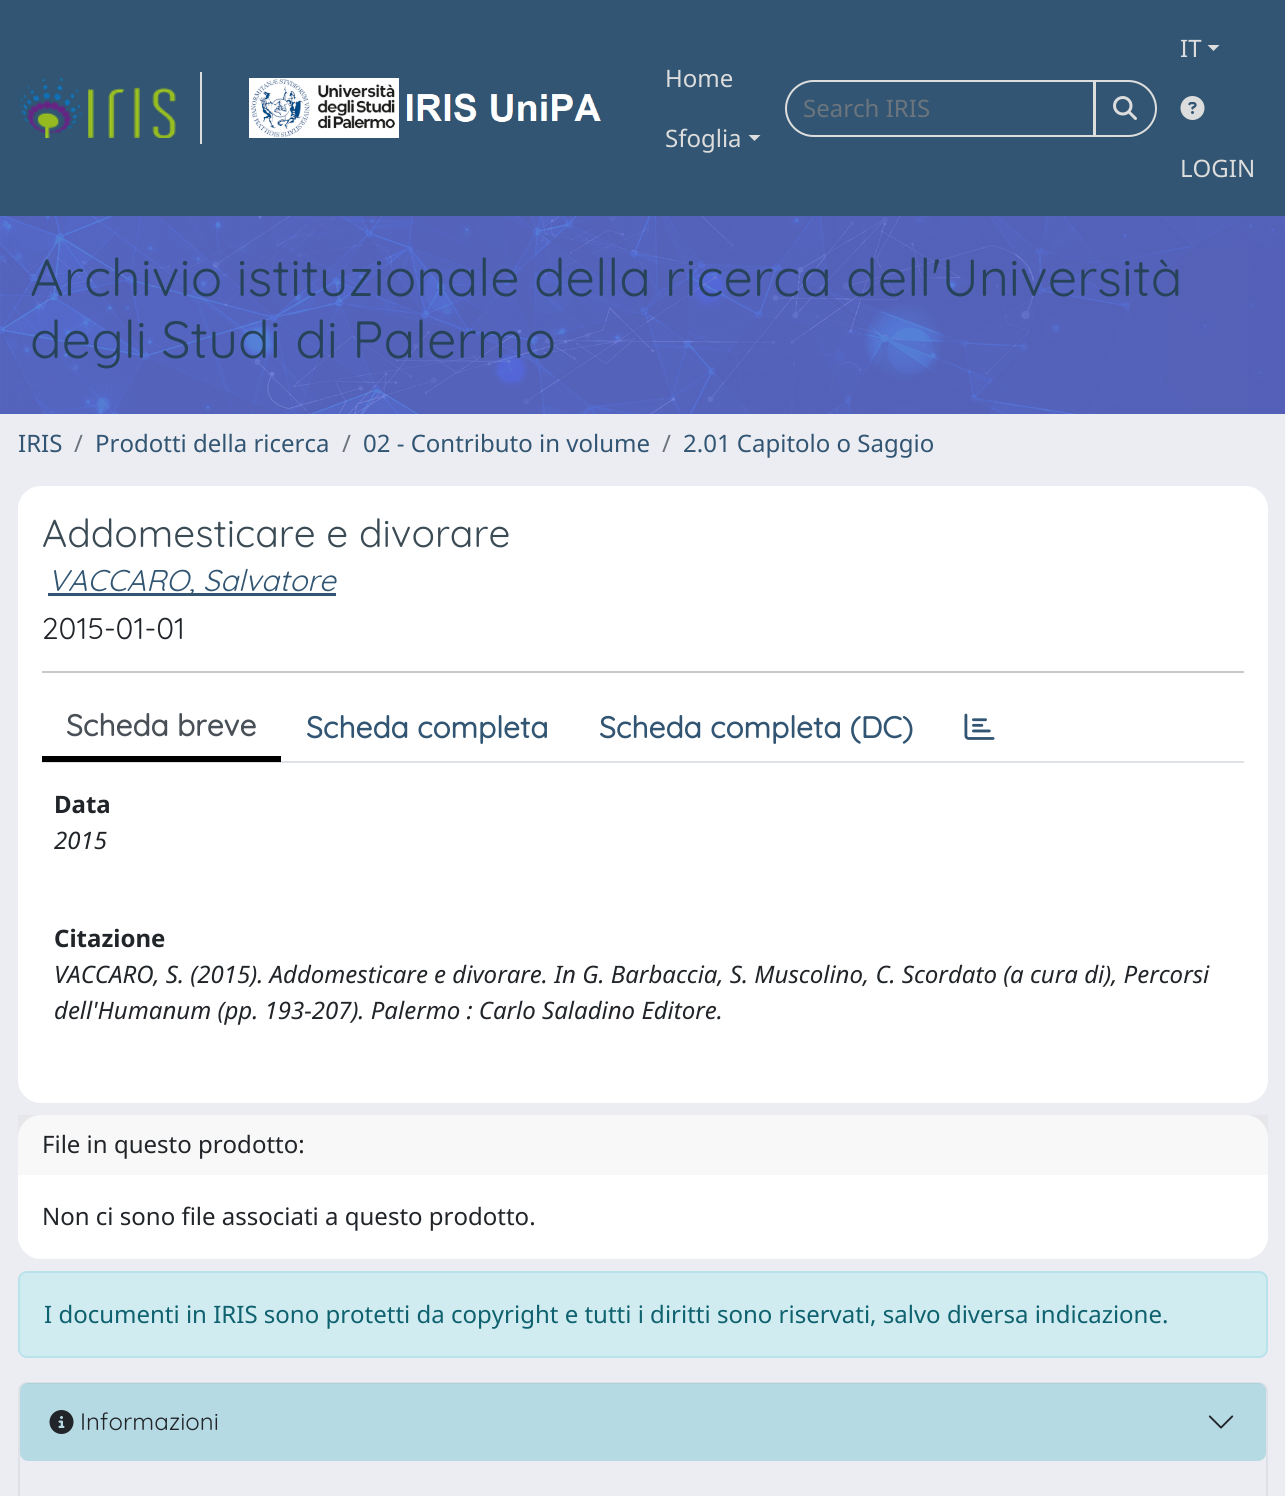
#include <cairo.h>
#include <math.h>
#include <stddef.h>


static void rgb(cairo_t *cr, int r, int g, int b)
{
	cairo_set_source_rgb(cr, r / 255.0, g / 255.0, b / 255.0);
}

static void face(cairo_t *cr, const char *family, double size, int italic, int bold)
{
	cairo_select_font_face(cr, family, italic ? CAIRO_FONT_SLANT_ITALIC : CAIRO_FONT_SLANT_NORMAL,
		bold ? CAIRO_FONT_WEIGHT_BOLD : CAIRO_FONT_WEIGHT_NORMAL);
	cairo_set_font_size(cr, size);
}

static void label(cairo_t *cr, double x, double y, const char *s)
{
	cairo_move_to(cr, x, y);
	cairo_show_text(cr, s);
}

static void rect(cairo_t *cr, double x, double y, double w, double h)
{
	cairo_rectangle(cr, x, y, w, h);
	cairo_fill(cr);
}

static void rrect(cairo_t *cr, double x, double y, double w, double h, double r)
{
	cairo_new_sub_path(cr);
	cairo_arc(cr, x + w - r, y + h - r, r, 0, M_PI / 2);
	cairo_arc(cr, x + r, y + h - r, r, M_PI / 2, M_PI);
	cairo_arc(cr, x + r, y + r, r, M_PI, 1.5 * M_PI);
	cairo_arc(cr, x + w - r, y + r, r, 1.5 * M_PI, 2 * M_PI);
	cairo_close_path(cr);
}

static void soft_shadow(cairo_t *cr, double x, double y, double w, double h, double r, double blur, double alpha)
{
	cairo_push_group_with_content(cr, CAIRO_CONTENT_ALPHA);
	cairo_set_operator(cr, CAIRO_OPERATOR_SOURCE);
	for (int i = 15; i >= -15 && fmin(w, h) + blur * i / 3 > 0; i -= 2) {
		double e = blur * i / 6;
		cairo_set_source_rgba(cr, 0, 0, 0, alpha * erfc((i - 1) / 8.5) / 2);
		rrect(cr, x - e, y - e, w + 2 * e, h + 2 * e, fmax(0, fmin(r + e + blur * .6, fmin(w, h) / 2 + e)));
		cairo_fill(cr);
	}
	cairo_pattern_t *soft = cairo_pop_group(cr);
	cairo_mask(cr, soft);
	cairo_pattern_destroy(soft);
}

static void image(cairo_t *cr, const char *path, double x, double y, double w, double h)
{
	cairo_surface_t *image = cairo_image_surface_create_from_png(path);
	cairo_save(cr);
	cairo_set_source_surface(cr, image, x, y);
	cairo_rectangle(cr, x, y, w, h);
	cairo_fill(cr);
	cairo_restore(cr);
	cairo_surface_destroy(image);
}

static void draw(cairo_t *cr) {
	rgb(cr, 236, 237, 242);
	cairo_paint(cr);
	rgb(cr, 49, 85, 114);
	rect(cr, 0, 0, 1285, 216);
	rgb(cr, 221, 221, 221);
	rect(cr, 200, 72, 2, 72);
	image(cr, "image0.png", 18, 78, 158, 60);
	image(cr, "image1.png", 249, 78, 353, 60);
	face(cr, "Noto Sans", 24, 0, 0);
	label(cr, 665, 87, "Home");
	label(cr, 665, 147, "Sfoglia");
	cairo_new_path(cr);
	cairo_move_to(cr, 748.5, 135);
	cairo_line_to(cr, 760.5, 135);
	cairo_line_to(cr, 754.5, 141);
	cairo_close_path(cr);
	cairo_fill(cr);
	cairo_new_path(cr);
	cairo_move_to(cr, 813.5, 81);
	cairo_line_to(cr, 1094, 81);
	cairo_line_to(cr, 1094, 136);
	cairo_line_to(cr, 813.5, 136);
	cairo_curve_to(cr, 798.5, 136, 786, 123.5, 786, 108.5);
	cairo_curve_to(cr, 786, 93.5, 798.5, 81, 813.5, 81);
	cairo_close_path(cr);
	cairo_stroke(cr);
	rgb(cr, 108, 117, 125);
	label(cr, 803, 117, "Search IRIS");
	rgb(cr, 0, 0, 0);
	soft_shadow(cr, 1094, 81, 63, 57, 28.5, 1, 0.07);
	rgb(cr, 49, 85, 114);
	cairo_new_path(cr);
	cairo_move_to(cr, 1094, 80);
	cairo_line_to(cr, 1128.5, 80);
	cairo_curve_to(cr, 1144, 80, 1157, 93, 1157, 108.5);
	cairo_curve_to(cr, 1157, 124, 1144, 137, 1128.5, 137);
	cairo_line_to(cr, 1094, 137);
	cairo_close_path(cr);
	cairo_fill(cr);
	rgb(cr, 80, 111, 135);
	cairo_new_path(cr);
	cairo_move_to(cr, 1095, 82);
	cairo_line_to(cr, 1128, 82);
	cairo_curve_to(cr, 1143, 82, 1154, 94, 1155, 109);
	cairo_line_to(cr, 1155, 108);
	cairo_curve_to(cr, 1155, 93, 1143, 81, 1128, 81);
	cairo_line_to(cr, 1095, 81);
	cairo_close_path(cr);
	cairo_fill(cr);
	cairo_new_path(cr);
	cairo_move_to(cr, 1095, 81);
	cairo_line_to(cr, 1128.5, 81);
	cairo_curve_to(cr, 1143.5, 81, 1156, 93.5, 1156, 108.5);
	cairo_curve_to(cr, 1156, 123.5, 1143.5, 136, 1128.5, 136);
	cairo_line_to(cr, 1095, 136);
	cairo_close_path(cr);
	rgb(cr, 221, 221, 221);
	cairo_stroke(cr);
	image(cr, "image2.png", 1113, 96, 24, 24);
	label(cr, 1180, 57, "IT");
	cairo_new_path(cr);
	cairo_move_to(cr, 1207.5, 45);
	cairo_line_to(cr, 1219.5, 45);
	cairo_line_to(cr, 1213.5, 51);
	cairo_close_path(cr);
	cairo_fill(cr);
	image(cr, "image3.png", 1180, 96, 25, 24);
	label(cr, 1180, 177, "LOGIN");
	image(cr, "image4.png", 0, 216, 1285, 198);
	face(cr, "Quicksand Light", 52.25, 0, 0);
	rgb(cr, 39, 67, 90);
	label(cr, 30, 296, "Archivio istituzionale della ricerca dell'Università");
	label(cr, 30, 358, "degli Studi di Palermo");
	face(cr, "Noto Sans", 24, 0, 0);
	rgb(cr, 49, 85, 114);
	label(cr, 18, 452, "IRIS");
	rgb(cr, 108, 117, 125);
	label(cr, 74, 452, "/");
	rgb(cr, 49, 85, 114);
	label(cr, 95, 452, "Prodotti della ricerca");
	rgb(cr, 108, 117, 125);
	label(cr, 342, 452, "/");
	rgb(cr, 49, 85, 114);
	label(cr, 363, 452, "02 - Contributo in volume");
	rgb(cr, 108, 117, 125);
	label(cr, 662, 452, "/");
	rgb(cr, 49, 85, 114);
	label(cr, 683, 452, "2.01 Capitolo o Saggio");
	rgb(cr, 255, 255, 255);
	rrect(cr, 18, 486, 1250, 617, 23);
	cairo_fill(cr);
	face(cr, "Quicksand Light", 38.9, 0, 0);
	rgb(cr, 58, 75, 85);
	label(cr, 42, 547, "Addomesticare e divorare");
	rgb(cr, 49, 85, 114);
	rect(cr, 48, 593, 288, 3);
	face(cr, "Quicksand Light", 30, 1, 0);
	label(cr, 48, 591, "VACCARO, Salvatore");
	face(cr, "Quicksand Light", 30, 0, 0);
	rgb(cr, 33, 37, 41);
	label(cr, 42, 639, "2015-01-01");
	rgb(cr, 200, 201, 202);
	rect(cr, 42, 671, 1202, 2);
	rgb(cr, 222, 226, 230);
	rect(cr, 42, 761, 1202, 2);
	rgb(cr, 0, 0, 0);
	rect(cr, 42, 756, 239, 6);
	face(cr, "Quicksand", 30, 0, 1);
	rgb(cr, 73, 80, 87);
	label(cr, 66, 736, "Scheda breve");
	rgb(cr, 49, 85, 114);
	label(cr, 306, 738, "Scheda completa");
	label(cr, 599, 738, "Scheda completa (DC)");
	image(cr, "image5.png", 964, 713, 31, 27);
	face(cr, "Noto Sans", 24, 0, 1);
	rgb(cr, 33, 37, 41);
	label(cr, 54, 813, "Data");
	face(cr, "Noto Sans", 24, 1, 0);
	label(cr, 54, 849, "2015");
	face(cr, "Noto Sans", 24, 0, 1);
	label(cr, 54, 947, "Citazione");
	face(cr, "Noto Sans", 24, 1, 0);
	label(cr, 54, 983, "VACCARO, S. (2015). Addomesticare e divorare. In G. Barbaccia, S. Muscolino, C. Scordato (a cura di), Percorsi");
	label(cr, 54, 1019, "dell'Humanum (pp. 193-207). Palermo : Carlo Saladino Editore.");
	rgb(cr, 255, 255, 255);
	rrect(cr, 18, 1115, 1250, 144, 23);
	cairo_fill(cr);
	cairo_set_source_rgba(cr, 0, 0, 0, 0.03);
	rect(cr, 18, 1115, 1250, 60);
	face(cr, "Noto Sans", 24, 0, 0);
	rgb(cr, 33, 37, 41);
	label(cr, 42, 1153, "File in questo prodotto:");
	label(cr, 42, 1225, "Non ci sono file associati a questo prodotto.");
	rgb(cr, 209, 236, 241);
	rrect(cr, 19, 1272, 1248, 85, 8);
	cairo_fill_preserve(cr);
	rgb(cr, 185, 227, 234);
	cairo_stroke(cr);
	rgb(cr, 14, 97, 110);
	label(cr, 44, 1323, "I documenti in IRIS sono protetti da copyright e tutti i diritti sono riservati, salvo diversa indicazione.");
	rrect(cr, 19, 1383, 1248, 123, 8);
	rgb(cr, 222, 226, 230);
	cairo_stroke(cr);
	cairo_set_source_rgba(cr, 0.09, 0.635, 0.722, 0.25);
	rrect(cr, 20, 1383, 1246, 78, 8);
	cairo_fill(cr);
	image(cr, "image6.png", 49, 1410, 25, 24);
	face(cr, "Quicksand Light", 24, 0, 0);
	rgb(cr, 33, 37, 41);
	label(cr, 80, 1430, "Informazioni");
	image(cr, "image7.png", 1208, 1415, 26, 14);
}

int main(void) {
	cairo_surface_t *surface = cairo_image_surface_create(CAIRO_FORMAT_RGB24, 1285, 1496);
	cairo_t *cr = cairo_create(surface);
	cairo_font_options_t *options = cairo_font_options_create();
	cairo_font_options_set_hint_metrics(options, CAIRO_HINT_METRICS_OFF);
	cairo_font_options_set_hint_style(options, CAIRO_HINT_STYLE_NONE);
	cairo_set_font_options(cr, options);
	cairo_set_miter_limit(cr, 4);
	draw(cr);
	cairo_surface_write_to_png(surface, "render.png");
	cairo_font_options_destroy(options);
	cairo_destroy(cr);
	cairo_surface_destroy(surface);
	return 0;
}
